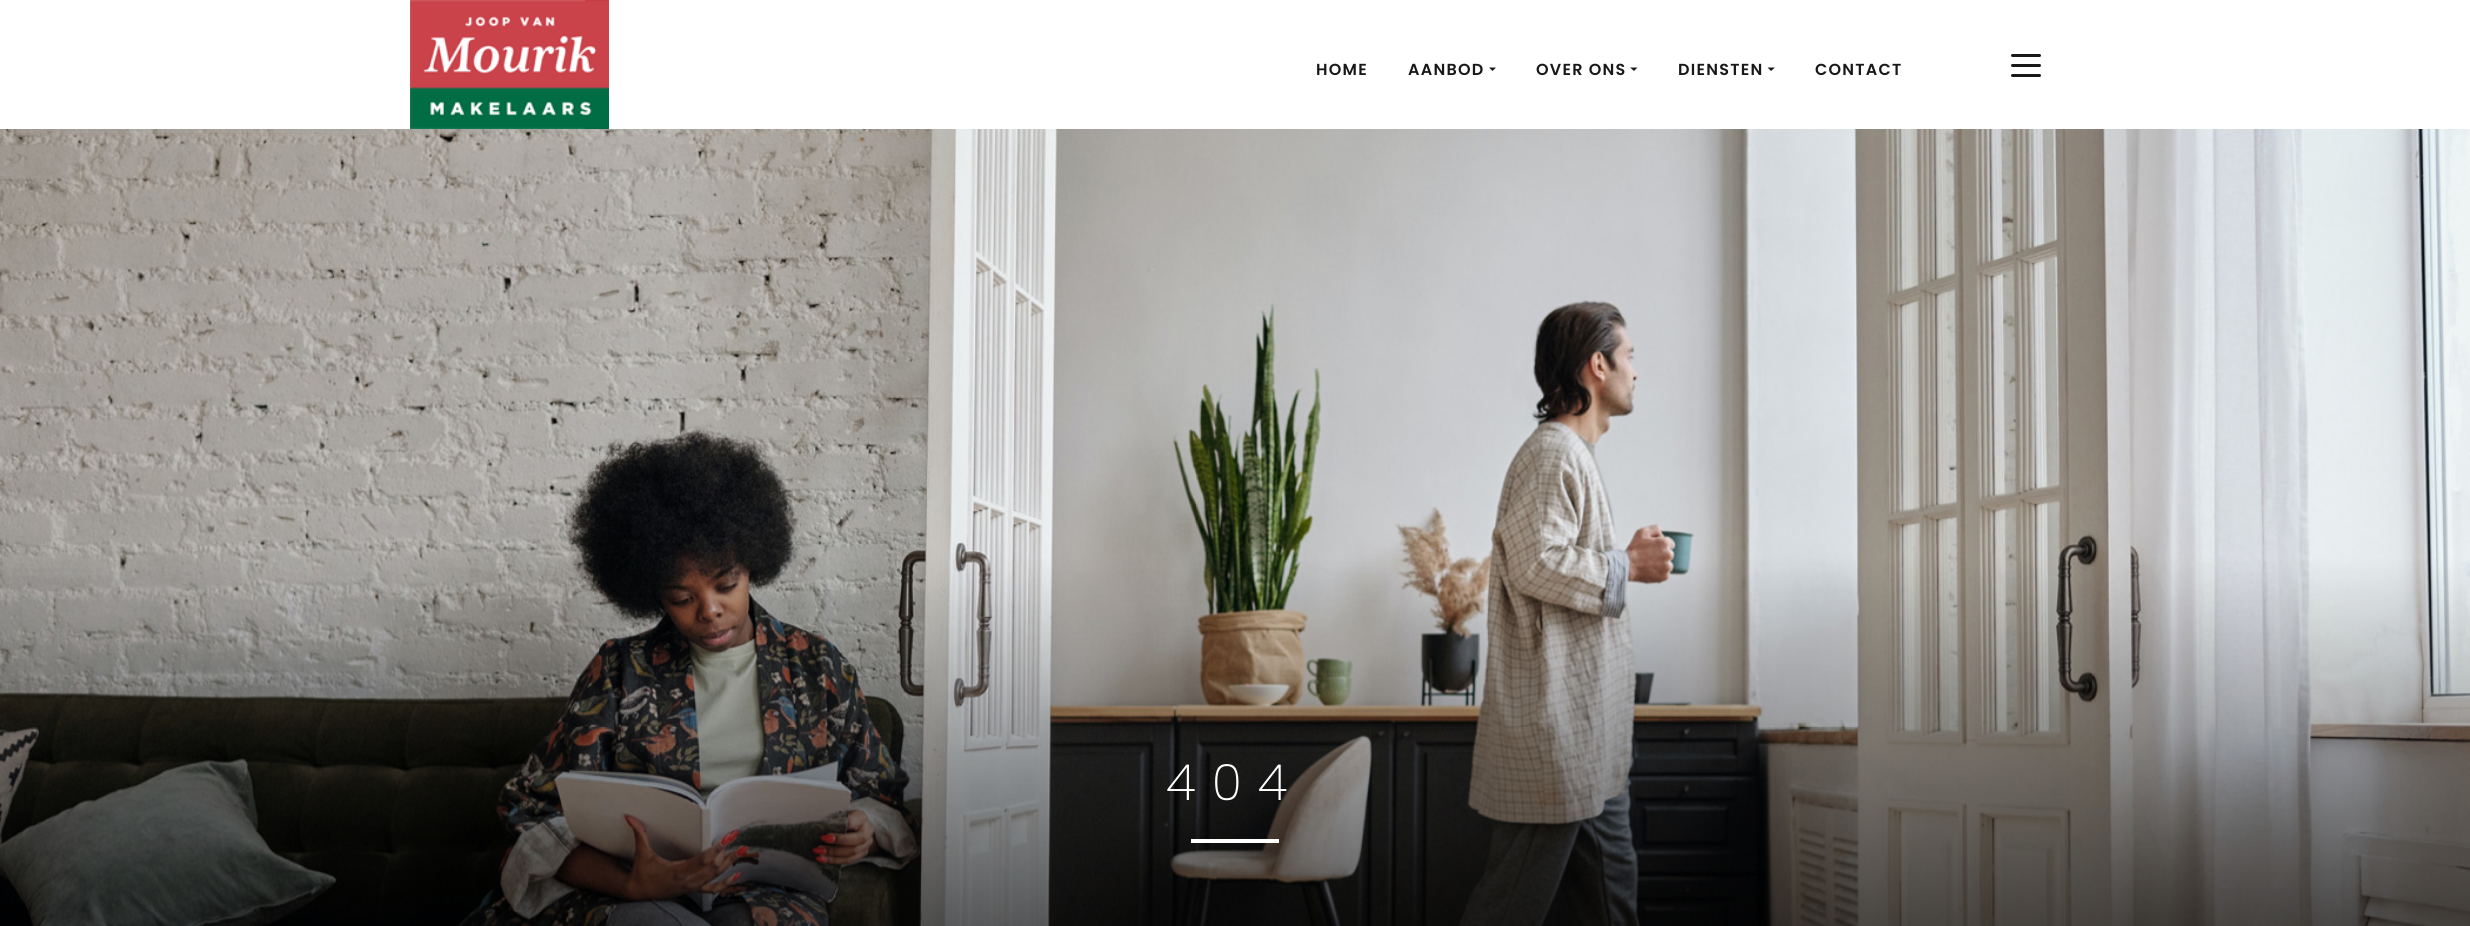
#include <cairo.h>
#include <math.h>
#include <stddef.h>


static void rgb(cairo_t *cr, int r, int g, int b)
{
	cairo_set_source_rgb(cr, r / 255.0, g / 255.0, b / 255.0);
}

static void face(cairo_t *cr, const char *family, double size, int italic, int bold)
{
	cairo_select_font_face(cr, family, italic ? CAIRO_FONT_SLANT_ITALIC : CAIRO_FONT_SLANT_NORMAL,
		bold ? CAIRO_FONT_WEIGHT_BOLD : CAIRO_FONT_WEIGHT_NORMAL);
	cairo_set_font_size(cr, size);
}

static void tracked(cairo_t *cr, double x, double y, const char *s, double letter, double word)
{
	cairo_move_to(cr, x, y);
	while (*s) {
		char ch[5] = {0};
		int n = 0;
		do ch[n++] = *s++; while ((*s & 0xC0) == 0x80);
		cairo_show_text(cr, ch);
		cairo_rel_move_to(cr, letter + word * (*ch == ' '), 0);
	}
}

static void rect(cairo_t *cr, double x, double y, double w, double h)
{
	cairo_rectangle(cr, x, y, w, h);
	cairo_fill(cr);
}

static void rrect(cairo_t *cr, double x, double y, double w, double h, double r)
{
	cairo_new_sub_path(cr);
	cairo_arc(cr, x + w - r, y + h - r, r, 0, M_PI / 2);
	cairo_arc(cr, x + r, y + h - r, r, M_PI / 2, M_PI);
	cairo_arc(cr, x + r, y + r, r, M_PI, 1.5 * M_PI);
	cairo_arc(cr, x + w - r, y + r, r, 1.5 * M_PI, 2 * M_PI);
	cairo_close_path(cr);
}

static void image(cairo_t *cr, const char *path, double x, double y, double w, double h)
{
	cairo_surface_t *image = cairo_image_surface_create_from_png(path);
	cairo_save(cr);
	cairo_set_source_surface(cr, image, x, y);
	cairo_rectangle(cr, x, y, w, h);
	cairo_fill(cr);
	cairo_restore(cr);
	cairo_surface_destroy(image);
}

static void draw(cairo_t *cr) {
	rgb(cr, 255, 255, 255);
	cairo_paint(cr);
	image(cr, "image0.png", 410, 0, 199, 129);
	face(cr, "Poppins SemiBold", 16, 0, 0);
	rgb(cr, 24, 24, 24);
	tracked(cr, 1316, 75, "HOME", 1.25, 0);
	tracked(cr, 1408, 75, "AANBOD", 1.25, 0);
	cairo_new_path(cr);
	cairo_move_to(cr, 1489, 67.5);
	cairo_line_to(cr, 1496, 67.5);
	cairo_line_to(cr, 1492.5, 71);
	cairo_close_path(cr);
	cairo_fill(cr);
	tracked(cr, 1536, 75, "OVER ONS", 1.25, 0);
	cairo_new_path(cr);
	cairo_move_to(cr, 1630, 67.5);
	cairo_line_to(cr, 1637.5, 67.5);
	cairo_line_to(cr, 1634, 71);
	cairo_close_path(cr);
	cairo_fill(cr);
	tracked(cr, 1678, 75, "DIENSTEN", 1.25, 0);
	cairo_new_path(cr);
	cairo_move_to(cr, 1767.5, 67.5);
	cairo_line_to(cr, 1775, 67.5);
	cairo_line_to(cr, 1771, 71);
	cairo_close_path(cr);
	cairo_fill(cr);
	tracked(cr, 1815, 75, "CONTACT", 1.25, 0);
	rrect(cr, 2011, 54, 30, 3, 1.5);
	cairo_fill(cr);
	rrect(cr, 2011, 64, 30, 3, 1.5);
	cairo_fill(cr);
	rrect(cr, 2011, 74, 30, 3, 1.5);
	cairo_fill(cr);
	image(cr, "image1.png", 0, 129, 2470, 797);
	face(cr, "Poppins ExtraLight", 50, 0, 0);
	rgb(cr, 255, 255, 255);
	tracked(cr, 1166, 800, "404", 16, 0);
	rect(cr, 1191, 839, 88, 4);
}

int main(void) {
	cairo_surface_t *surface = cairo_image_surface_create(CAIRO_FORMAT_RGB24, 2470, 926);
	cairo_t *cr = cairo_create(surface);
	cairo_font_options_t *options = cairo_font_options_create();
	cairo_font_options_set_hint_metrics(options, CAIRO_HINT_METRICS_OFF);
	cairo_font_options_set_hint_style(options, CAIRO_HINT_STYLE_NONE);
	cairo_set_font_options(cr, options);
	cairo_set_miter_limit(cr, 4);
	draw(cr);
	cairo_surface_write_to_png(surface, "render.png");
	cairo_font_options_destroy(options);
	cairo_destroy(cr);
	cairo_surface_destroy(surface);
	return 0;
}
